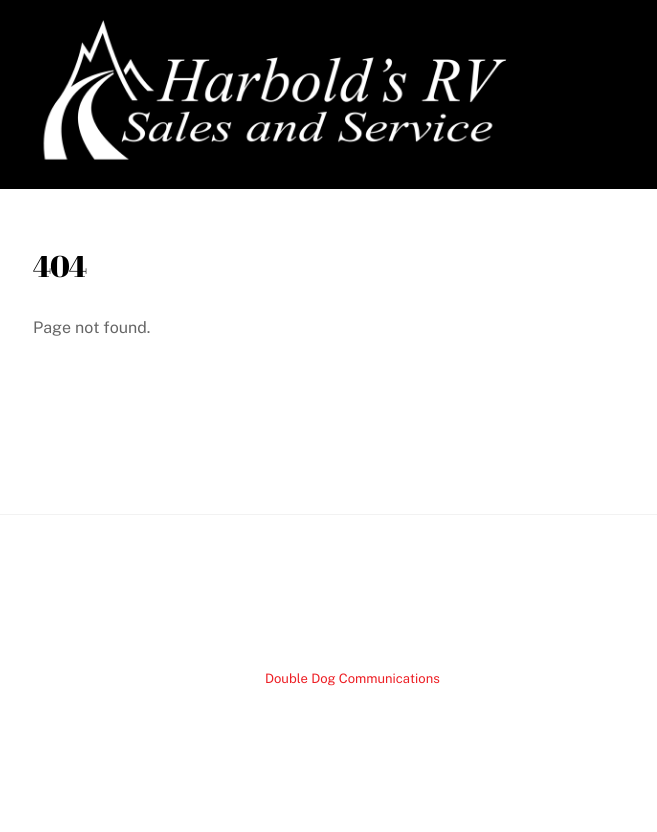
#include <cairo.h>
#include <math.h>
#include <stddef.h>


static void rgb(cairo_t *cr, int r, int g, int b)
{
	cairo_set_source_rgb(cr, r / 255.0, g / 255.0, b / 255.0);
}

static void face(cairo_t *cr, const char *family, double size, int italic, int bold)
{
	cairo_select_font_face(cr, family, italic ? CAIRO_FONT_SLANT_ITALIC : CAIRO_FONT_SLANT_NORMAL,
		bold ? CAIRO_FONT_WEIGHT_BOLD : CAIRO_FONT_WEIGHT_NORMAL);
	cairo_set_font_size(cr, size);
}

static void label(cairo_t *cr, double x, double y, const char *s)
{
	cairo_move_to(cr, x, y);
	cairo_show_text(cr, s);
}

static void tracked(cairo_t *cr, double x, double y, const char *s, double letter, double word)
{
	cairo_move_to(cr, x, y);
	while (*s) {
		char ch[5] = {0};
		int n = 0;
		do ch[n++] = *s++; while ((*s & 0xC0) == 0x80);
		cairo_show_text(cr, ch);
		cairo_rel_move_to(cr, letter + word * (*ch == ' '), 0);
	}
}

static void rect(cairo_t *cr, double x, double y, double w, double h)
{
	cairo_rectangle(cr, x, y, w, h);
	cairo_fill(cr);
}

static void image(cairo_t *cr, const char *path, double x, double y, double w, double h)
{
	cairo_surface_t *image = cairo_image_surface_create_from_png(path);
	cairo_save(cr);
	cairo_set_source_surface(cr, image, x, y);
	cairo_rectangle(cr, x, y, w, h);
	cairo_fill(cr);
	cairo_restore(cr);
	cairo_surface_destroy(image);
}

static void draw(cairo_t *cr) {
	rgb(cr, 255, 255, 255);
	cairo_paint(cr);
	rgb(cr, 0, 0, 0);
	rect(cr, 0, 0, 657, 189);
	image(cr, "image0.png", 43, 20, 464, 140);
	face(cr, "Abril Fatface", 30, 0, 0);
	tracked(cr, 33, 277, "404", -1, 0);
	face(cr, "Public Sans", 16, 0, 0);
	rgb(cr, 102, 102, 102);
	label(cr, 33, 333, "Page not found.");
	rgb(cr, 242, 242, 242);
	rect(cr, 0, 514, 657, 1);
	face(cr, "Public Sans", 13, 0, 0);
	rgb(cr, 237, 30, 36);
	label(cr, 265, 683, "Double Dog Communications");
}

int main(void) {
	cairo_surface_t *surface = cairo_image_surface_create(CAIRO_FORMAT_RGB24, 657, 832);
	cairo_t *cr = cairo_create(surface);
	cairo_font_options_t *options = cairo_font_options_create();
	cairo_font_options_set_hint_metrics(options, CAIRO_HINT_METRICS_OFF);
	cairo_font_options_set_hint_style(options, CAIRO_HINT_STYLE_NONE);
	cairo_set_font_options(cr, options);
	cairo_set_miter_limit(cr, 4);
	draw(cr);
	cairo_surface_write_to_png(surface, "render.png");
	cairo_font_options_destroy(options);
	cairo_destroy(cr);
	cairo_surface_destroy(surface);
	return 0;
}
